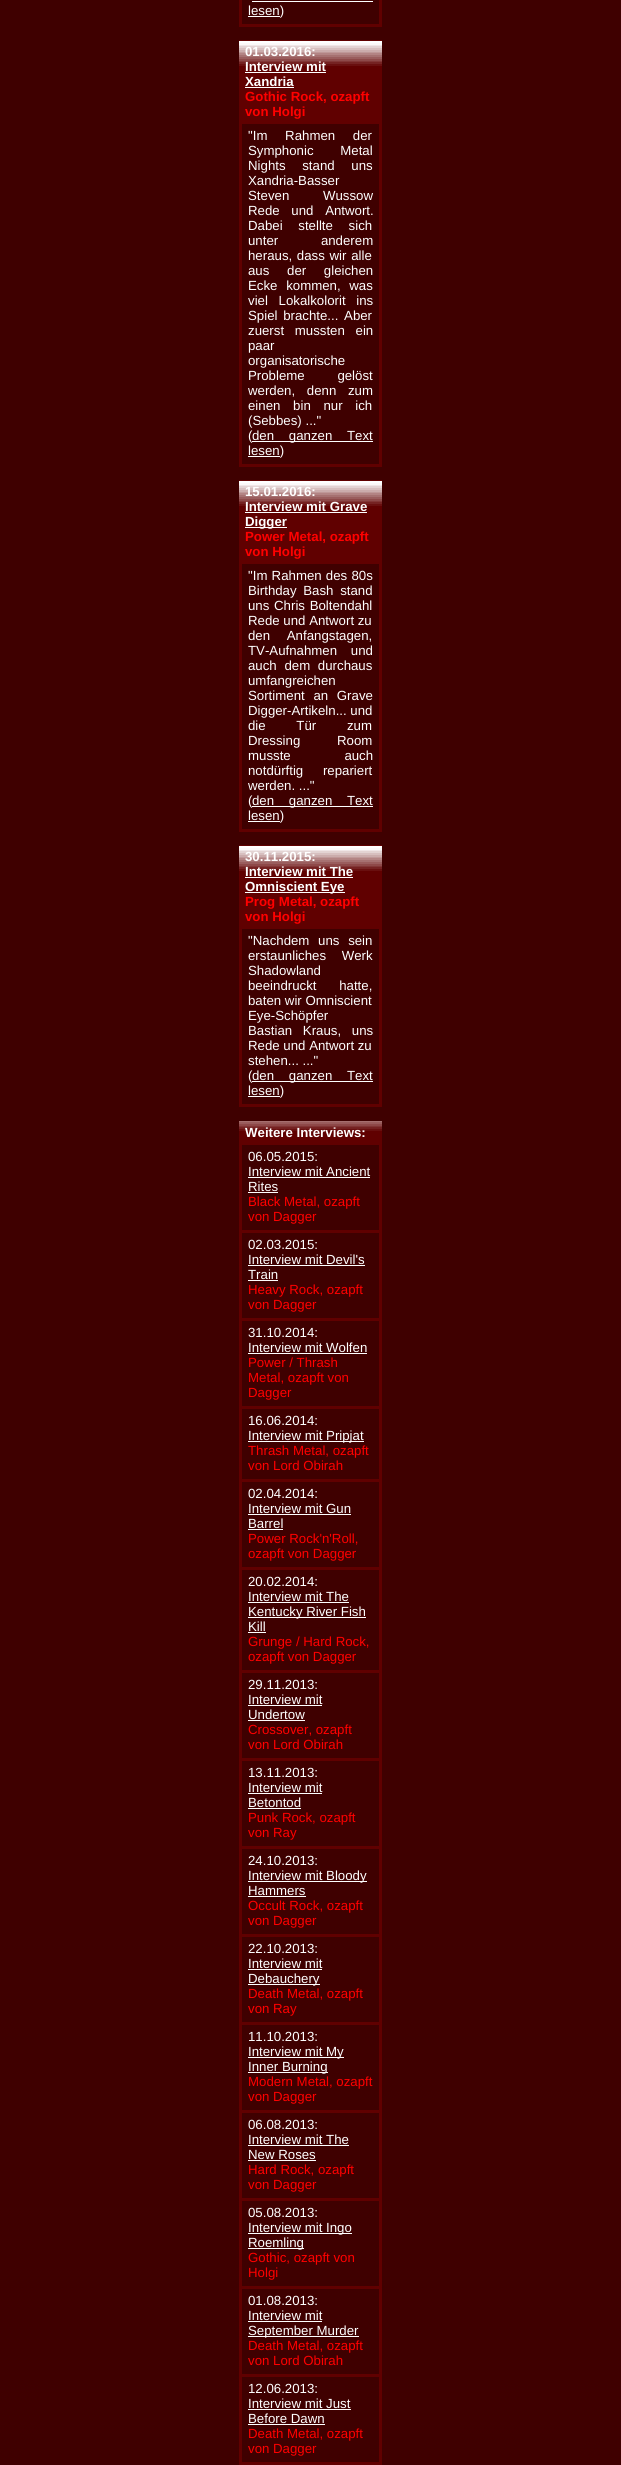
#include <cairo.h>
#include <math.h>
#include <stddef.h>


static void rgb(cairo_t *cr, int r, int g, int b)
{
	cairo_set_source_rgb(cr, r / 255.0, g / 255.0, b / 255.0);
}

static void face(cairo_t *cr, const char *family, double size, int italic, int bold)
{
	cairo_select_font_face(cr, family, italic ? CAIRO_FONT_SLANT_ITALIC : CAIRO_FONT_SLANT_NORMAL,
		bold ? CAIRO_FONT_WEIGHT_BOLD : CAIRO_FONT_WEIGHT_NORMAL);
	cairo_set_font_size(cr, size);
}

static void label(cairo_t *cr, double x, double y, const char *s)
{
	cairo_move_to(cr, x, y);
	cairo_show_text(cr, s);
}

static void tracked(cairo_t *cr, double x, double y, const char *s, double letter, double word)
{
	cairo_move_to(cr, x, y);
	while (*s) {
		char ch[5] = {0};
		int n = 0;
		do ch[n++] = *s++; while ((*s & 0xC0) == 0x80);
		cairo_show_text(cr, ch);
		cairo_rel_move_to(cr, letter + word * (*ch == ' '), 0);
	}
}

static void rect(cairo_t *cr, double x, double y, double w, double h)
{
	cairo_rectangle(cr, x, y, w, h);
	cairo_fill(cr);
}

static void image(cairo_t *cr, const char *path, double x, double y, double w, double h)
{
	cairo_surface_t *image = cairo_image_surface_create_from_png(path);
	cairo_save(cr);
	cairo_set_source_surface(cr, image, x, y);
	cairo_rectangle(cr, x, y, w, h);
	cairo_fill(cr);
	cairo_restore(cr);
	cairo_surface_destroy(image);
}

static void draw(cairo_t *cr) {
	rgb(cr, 63, 0, 0);
	cairo_paint(cr);
	rgb(cr, 96, 0, 0);
	rect(cr, 379, 0, 3, 27);
	rect(cr, 239, 24, 143, 3);
	rect(cr, 239, 0, 3, 27);
	rgb(cr, 255, 255, 255);
	rect(cr, 248, 16, 32, 1);
	face(cr, "Liberation Sans", 13.25, 0, 0);
	label(cr, 248, 15, "lesen)");
	rect(cr, 252, 1, 121, 1);
	rgb(cr, 96, 0, 0);
	rect(cr, 239, 40, 143, 84);
	image(cr, "image0.png", 239, 41, 143, 25);
	face(cr, "Liberation Sans", 13.25, 0, 1);
	rgb(cr, 255, 255, 255);
	label(cr, 245, 56, "01.03.2016:");
	label(cr, 245, 71, "Interview mit");
	rect(cr, 245, 72, 81, 1);
	label(cr, 245, 86, "Xandria");
	rect(cr, 245, 87, 49, 1);
	rgb(cr, 255, 0, 0);
	label(cr, 245, 101, "Gothic Rock, ozapft");
	label(cr, 245, 116, "von Holgi");
	rgb(cr, 96, 0, 0);
	rect(cr, 379, 124, 3, 343);
	rect(cr, 239, 464, 143, 3);
	rect(cr, 239, 124, 3, 343);
	face(cr, "Liberation Sans", 13.25, 0, 0);
	rgb(cr, 255, 255, 255);
	tracked(cr, 248, 140, "\"Im Rahmen der", 0, 14);
	tracked(cr, 248, 155, "Symphonic Metal", 0, 23);
	tracked(cr, 248, 170, "Nights stand uns", 0, 13);
	label(cr, 248, 185, "Xandria-Basser");
	tracked(cr, 248, 200, "Steven Wussow", 0, 30);
	tracked(cr, 248, 215, "Rede und Antwort.", 0, 8);
	tracked(cr, 248, 230, "Dabei stellte sich", 0, 12);
	tracked(cr, 248, 245, "unter anderem", 0, 39);
	tracked(cr, 248, 260, "heraus, dass wir alle", 0, 1);
	tracked(cr, 248, 275, "aus der gleichen", 0, 14);
	tracked(cr, 248, 290, "Ecke kommen, was", 0, 5);
	tracked(cr, 248, 305, "viel Lokalkolorit ins", 0, 7);
	tracked(cr, 248, 320, "Spiel brachte... Aber", 0, 2);
	tracked(cr, 248, 335, "zuerst mussten ein", 0, 7);
	label(cr, 248, 350, "paar");
	label(cr, 248, 365, "organisatorische");
	tracked(cr, 248, 380, "Probleme gelöst", 0, 29);
	tracked(cr, 248, 395, "werden, denn zum", 0, 8);
	tracked(cr, 248, 410, "einen bin nur ich", 0, 9);
	label(cr, 248, 425, "(Sebbes) ...\"");
	label(cr, 248, 440, "(");
	rect(cr, 252, 441, 121, 1);
	tracked(cr, 252, 440, "den ganzen Text", 0, 11);
	rect(cr, 248, 456, 32, 1);
	label(cr, 248, 455, "lesen)");
	rgb(cr, 96, 0, 0);
	rect(cr, 239, 480, 143, 84);
	image(cr, "image0.png", 239, 481, 143, 25);
	face(cr, "Liberation Sans", 13.25, 0, 1);
	rgb(cr, 255, 255, 255);
	label(cr, 245, 496, "15.01.2016:");
	label(cr, 245, 511, "Interview mit Grave");
	rect(cr, 245, 512, 122, 1);
	rect(cr, 245, 527, 42, 1);
	label(cr, 245, 526, "Digger");
	rgb(cr, 255, 0, 0);
	label(cr, 245, 541, "Power Metal, ozapft");
	label(cr, 245, 556, "von Holgi");
	rgb(cr, 96, 0, 0);
	rect(cr, 379, 564, 3, 268);
	rect(cr, 239, 829, 143, 3);
	rect(cr, 239, 564, 3, 268);
	face(cr, "Liberation Sans", 13.25, 0, 0);
	rgb(cr, 255, 255, 255);
	tracked(cr, 248, 580, "\"Im Rahmen des 80s", 0, 0.5);
	tracked(cr, 248, 595, "Birthday Bash stand", 0, 3);
	tracked(cr, 248, 610, "uns Chris Boltendahl", 0, 1);
	label(cr, 248, 625, "Rede und Antwort zu");
	tracked(cr, 248, 640, "den Anfangstagen,", 0, 13);
	tracked(cr, 248, 655, "TV-Aufnahmen und", 0, 10);
	tracked(cr, 248, 670, "auch dem durchaus", 0, 4);
	label(cr, 248, 685, "umfangreichen");
	tracked(cr, 248, 700, "Sortiment an Grave", 0, 5);
	label(cr, 248, 715, "Digger-Artikeln... und");
	tracked(cr, 248, 730, "die Tür zum", 0, 27);
	tracked(cr, 248, 745, "Dressing Room", 0, 33);
	tracked(cr, 248, 760, "musste auch", 0, 50);
	tracked(cr, 248, 775, "notdürftig repariert", 0, 16);
	label(cr, 248, 790, "werden. ...\"");
	label(cr, 248, 805, "(");
	rect(cr, 252, 806, 121, 1);
	tracked(cr, 252, 805, "den ganzen Text", 0, 11);
	rect(cr, 248, 821, 32, 1);
	label(cr, 248, 820, "lesen)");
	rgb(cr, 96, 0, 0);
	rect(cr, 239, 845, 143, 84);
	image(cr, "image0.png", 239, 846, 143, 25);
	face(cr, "Liberation Sans", 13.25, 0, 1);
	rgb(cr, 255, 255, 255);
	label(cr, 245, 861, "30.11.2015:");
	label(cr, 245, 876, "Interview mit The");
	rect(cr, 245, 877, 108, 1);
	rect(cr, 245, 892, 100, 1);
	label(cr, 245, 891, "Omniscient Eye");
	rgb(cr, 255, 0, 0);
	label(cr, 245, 906, "Prog Metal, ozapft");
	label(cr, 245, 921, "von Holgi");
	rgb(cr, 96, 0, 0);
	rect(cr, 379, 929, 3, 178);
	rect(cr, 239, 1104, 143, 3);
	rect(cr, 239, 929, 3, 178);
	face(cr, "Liberation Sans", 13.25, 0, 0);
	rgb(cr, 255, 255, 255);
	tracked(cr, 248, 945, "\"Nachdem uns sein", 0, 5);
	tracked(cr, 248, 960, "erstaunliches Werk", 0, 12);
	label(cr, 248, 975, "Shadowland");
	tracked(cr, 248, 990, "beeindruckt hatte,", 0, 19);
	label(cr, 248, 1005, "baten wir Omniscient");
	label(cr, 248, 1020, "Eye-Schöpfer");
	tracked(cr, 248, 1035, "Bastian Kraus, uns", 0, 7);
	label(cr, 248, 1050, "Rede und Antwort zu");
	label(cr, 248, 1065, "stehen... ...\"");
	label(cr, 248, 1080, "(");
	rect(cr, 252, 1081, 121, 1);
	tracked(cr, 252, 1080, "den ganzen Text", 0, 11);
	rect(cr, 248, 1096, 32, 1);
	label(cr, 248, 1095, "lesen)");
	rgb(cr, 96, 0, 0);
	rect(cr, 239, 1131, 143, 14);
	image(cr, "image1.png", 239, 1121, 143, 10);
	face(cr, "Liberation Sans", 13.25, 0, 1);
	rgb(cr, 255, 255, 255);
	label(cr, 245, 1137, "Weitere Interviews:");
	rgb(cr, 96, 0, 0);
	rect(cr, 379, 1145, 3, 1320);
	rect(cr, 239, 1230, 143, 3);
	rect(cr, 239, 1145, 3, 88);
	face(cr, "Liberation Sans", 13.25, 0, 0);
	rgb(cr, 255, 255, 255);
	label(cr, 248, 1161, "06.05.2015:");
	label(cr, 248, 1176, "Interview mit Ancient");
	rect(cr, 248, 1177, 122, 1);
	label(cr, 248, 1191, "Rites");
	rect(cr, 248, 1192, 30, 1);
	rgb(cr, 255, 0, 0);
	label(cr, 248, 1206, "Black Metal, ozapft");
	label(cr, 248, 1221, "von Dagger");
	rgb(cr, 96, 0, 0);
	rect(cr, 239, 1318, 143, 3);
	rect(cr, 239, 1233, 3, 88);
	rgb(cr, 255, 255, 255);
	label(cr, 248, 1249, "02.03.2015:");
	label(cr, 248, 1264, "Interview mit Devil's");
	rect(cr, 248, 1265, 117, 1);
	label(cr, 248, 1279, "Train");
	rect(cr, 248, 1280, 30, 1);
	rgb(cr, 255, 0, 0);
	label(cr, 248, 1294, "Heavy Rock, ozapft");
	label(cr, 248, 1309, "von Dagger");
	rgb(cr, 96, 0, 0);
	rect(cr, 239, 1406, 143, 3);
	rect(cr, 239, 1321, 3, 88);
	rgb(cr, 255, 255, 255);
	label(cr, 248, 1337, "31.10.2014:");
	label(cr, 248, 1352, "Interview mit Wolfen");
	rect(cr, 248, 1353, 119, 1);
	rgb(cr, 255, 0, 0);
	label(cr, 248, 1367, "Power / Thrash");
	label(cr, 248, 1382, "Metal, ozapft von");
	label(cr, 248, 1397, "Dagger");
	rgb(cr, 96, 0, 0);
	rect(cr, 239, 1479, 143, 3);
	rect(cr, 239, 1409, 3, 73);
	rgb(cr, 255, 255, 255);
	label(cr, 248, 1425, "16.06.2014:");
	rect(cr, 248, 1441, 116, 1);
	label(cr, 248, 1440, "Interview mit Pripjat");
	rgb(cr, 255, 0, 0);
	label(cr, 248, 1455, "Thrash Metal, ozapft");
	label(cr, 248, 1470, "von Lord Obirah");
	rgb(cr, 96, 0, 0);
	rect(cr, 239, 1567, 143, 3);
	rect(cr, 239, 1482, 3, 88);
	rgb(cr, 255, 255, 255);
	label(cr, 248, 1498, "02.04.2014:");
	label(cr, 248, 1513, "Interview mit Gun");
	rect(cr, 248, 1514, 103, 1);
	label(cr, 248, 1528, "Barrel");
	rect(cr, 248, 1529, 35, 1);
	rgb(cr, 255, 0, 0);
	label(cr, 248, 1543, "Power Rock'n'Roll,");
	label(cr, 248, 1558, "ozapft von Dagger");
	rgb(cr, 96, 0, 0);
	rect(cr, 239, 1670, 143, 3);
	rect(cr, 239, 1570, 3, 103);
	rgb(cr, 255, 255, 255);
	label(cr, 248, 1586, "20.02.2014:");
	label(cr, 248, 1601, "Interview mit The");
	rect(cr, 248, 1602, 101, 1);
	rect(cr, 248, 1617, 118, 1);
	label(cr, 248, 1616, "Kentucky River Fish");
	label(cr, 248, 1631, "Kill");
	rect(cr, 248, 1632, 18, 1);
	rgb(cr, 255, 0, 0);
	label(cr, 248, 1646, "Grunge / Hard Rock,");
	label(cr, 248, 1661, "ozapft von Dagger");
	rgb(cr, 96, 0, 0);
	rect(cr, 239, 1758, 143, 3);
	rect(cr, 239, 1673, 3, 88);
	rgb(cr, 255, 255, 255);
	label(cr, 248, 1689, "29.11.2013:");
	label(cr, 248, 1704, "Interview mit");
	rect(cr, 248, 1705, 74, 1);
	label(cr, 248, 1719, "Undertow");
	rect(cr, 248, 1720, 57, 1);
	rgb(cr, 255, 0, 0);
	label(cr, 248, 1734, "Crossover, ozapft");
	label(cr, 248, 1749, "von Lord Obirah");
	rgb(cr, 96, 0, 0);
	rect(cr, 239, 1846, 143, 3);
	rect(cr, 239, 1761, 3, 88);
	rgb(cr, 255, 255, 255);
	label(cr, 248, 1777, "13.11.2013:");
	label(cr, 248, 1792, "Interview mit");
	rect(cr, 248, 1793, 74, 1);
	label(cr, 248, 1807, "Betontod");
	rect(cr, 248, 1808, 53, 1);
	rgb(cr, 255, 0, 0);
	label(cr, 248, 1822, "Punk Rock, ozapft");
	label(cr, 248, 1837, "von Ray");
	rgb(cr, 96, 0, 0);
	rect(cr, 239, 1934, 143, 3);
	rect(cr, 239, 1849, 3, 88);
	rgb(cr, 255, 255, 255);
	label(cr, 248, 1865, "24.10.2013:");
	rect(cr, 248, 1881, 119, 1);
	label(cr, 248, 1880, "Interview mit Bloody");
	label(cr, 248, 1895, "Hammers");
	rect(cr, 248, 1896, 58, 1);
	rgb(cr, 255, 0, 0);
	label(cr, 248, 1910, "Occult Rock, ozapft");
	label(cr, 248, 1925, "von Dagger");
	rgb(cr, 96, 0, 0);
	rect(cr, 239, 2022, 143, 3);
	rect(cr, 239, 1937, 3, 88);
	rgb(cr, 255, 255, 255);
	label(cr, 248, 1953, "22.10.2013:");
	label(cr, 248, 1968, "Interview mit");
	rect(cr, 248, 1969, 74, 1);
	rect(cr, 248, 1984, 72, 1);
	label(cr, 248, 1983, "Debauchery");
	rgb(cr, 255, 0, 0);
	label(cr, 248, 1998, "Death Metal, ozapft");
	label(cr, 248, 2013, "von Ray");
	rgb(cr, 96, 0, 0);
	rect(cr, 239, 2110, 143, 3);
	rect(cr, 239, 2025, 3, 88);
	rgb(cr, 255, 255, 255);
	label(cr, 248, 2041, "11.10.2013:");
	rect(cr, 248, 2057, 96, 1);
	label(cr, 248, 2056, "Interview mit My");
	rect(cr, 248, 2072, 80, 1);
	label(cr, 248, 2071, "Inner Burning");
	rgb(cr, 255, 0, 0);
	label(cr, 248, 2086, "Modern Metal, ozapft");
	label(cr, 248, 2101, "von Dagger");
	rgb(cr, 96, 0, 0);
	rect(cr, 239, 2198, 143, 3);
	rect(cr, 239, 2113, 3, 88);
	rgb(cr, 255, 255, 255);
	label(cr, 248, 2129, "06.08.2013:");
	label(cr, 248, 2144, "Interview mit The");
	rect(cr, 248, 2145, 101, 1);
	label(cr, 248, 2159, "New Roses");
	rect(cr, 248, 2160, 68, 1);
	rgb(cr, 255, 0, 0);
	label(cr, 248, 2174, "Hard Rock, ozapft");
	label(cr, 248, 2189, "von Dagger");
	rgb(cr, 96, 0, 0);
	rect(cr, 239, 2286, 143, 3);
	rect(cr, 239, 2201, 3, 88);
	rgb(cr, 255, 255, 255);
	label(cr, 248, 2217, "05.08.2013:");
	rect(cr, 248, 2233, 104, 1);
	label(cr, 248, 2232, "Interview mit Ingo");
	rect(cr, 248, 2248, 56, 1);
	label(cr, 248, 2247, "Roemling");
	rgb(cr, 255, 0, 0);
	label(cr, 248, 2262, "Gothic, ozapft von");
	label(cr, 248, 2277, "Holgi");
	rgb(cr, 96, 0, 0);
	rect(cr, 239, 2374, 143, 3);
	rect(cr, 239, 2289, 3, 88);
	rgb(cr, 255, 255, 255);
	label(cr, 248, 2305, "01.08.2013:");
	label(cr, 248, 2320, "Interview mit");
	rect(cr, 248, 2321, 74, 1);
	rect(cr, 248, 2336, 111, 1);
	label(cr, 248, 2335, "September Murder");
	rgb(cr, 255, 0, 0);
	label(cr, 248, 2350, "Death Metal, ozapft");
	label(cr, 248, 2365, "von Lord Obirah");
	rgb(cr, 96, 0, 0);
	rect(cr, 239, 2462, 143, 3);
	rect(cr, 239, 2377, 3, 88);
	rgb(cr, 255, 255, 255);
	label(cr, 248, 2393, "12.06.2013:");
	label(cr, 248, 2408, "Interview mit Just");
	rect(cr, 248, 2409, 103, 1);
	label(cr, 248, 2423, "Before Dawn");
	rect(cr, 248, 2424, 77, 1);
	rgb(cr, 255, 0, 0);
	label(cr, 248, 2438, "Death Metal, ozapft");
	label(cr, 248, 2453, "von Dagger");
}

int main(void) {
	cairo_surface_t *surface = cairo_image_surface_create(CAIRO_FORMAT_RGB24, 621, 2465);
	cairo_t *cr = cairo_create(surface);
	cairo_font_options_t *options = cairo_font_options_create();
	cairo_font_options_set_hint_metrics(options, CAIRO_HINT_METRICS_OFF);
	cairo_font_options_set_hint_style(options, CAIRO_HINT_STYLE_NONE);
	cairo_set_font_options(cr, options);
	cairo_set_miter_limit(cr, 4);
	draw(cr);
	cairo_surface_write_to_png(surface, "render.png");
	cairo_font_options_destroy(options);
	cairo_destroy(cr);
	cairo_surface_destroy(surface);
	return 0;
}
